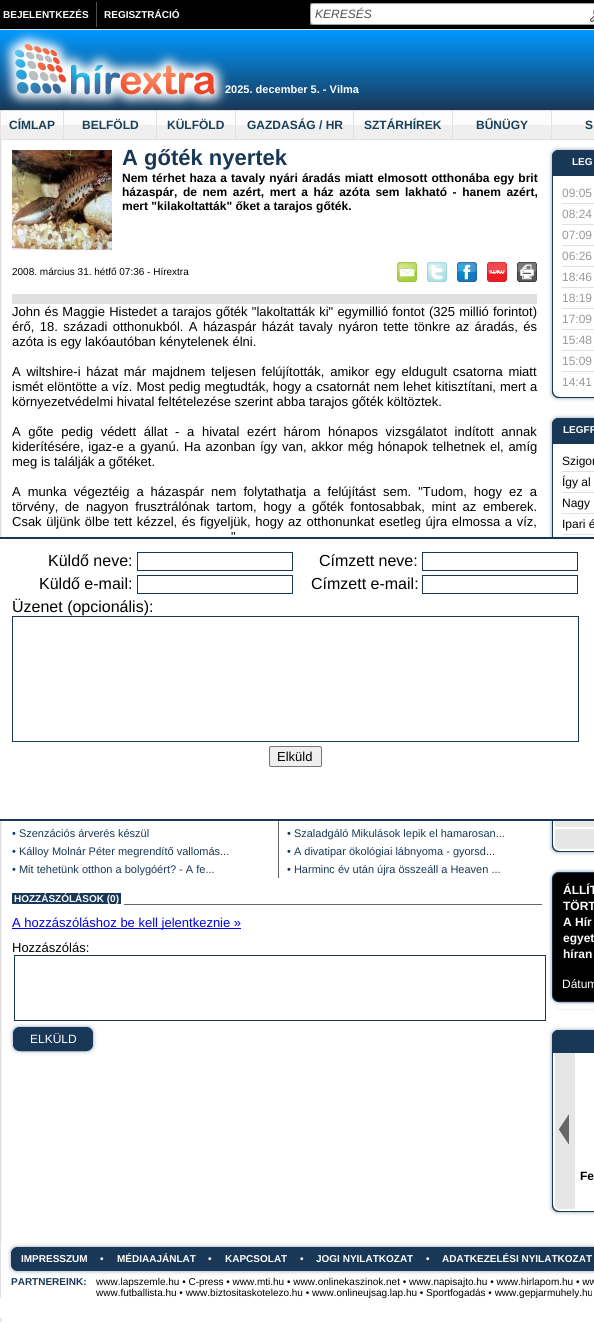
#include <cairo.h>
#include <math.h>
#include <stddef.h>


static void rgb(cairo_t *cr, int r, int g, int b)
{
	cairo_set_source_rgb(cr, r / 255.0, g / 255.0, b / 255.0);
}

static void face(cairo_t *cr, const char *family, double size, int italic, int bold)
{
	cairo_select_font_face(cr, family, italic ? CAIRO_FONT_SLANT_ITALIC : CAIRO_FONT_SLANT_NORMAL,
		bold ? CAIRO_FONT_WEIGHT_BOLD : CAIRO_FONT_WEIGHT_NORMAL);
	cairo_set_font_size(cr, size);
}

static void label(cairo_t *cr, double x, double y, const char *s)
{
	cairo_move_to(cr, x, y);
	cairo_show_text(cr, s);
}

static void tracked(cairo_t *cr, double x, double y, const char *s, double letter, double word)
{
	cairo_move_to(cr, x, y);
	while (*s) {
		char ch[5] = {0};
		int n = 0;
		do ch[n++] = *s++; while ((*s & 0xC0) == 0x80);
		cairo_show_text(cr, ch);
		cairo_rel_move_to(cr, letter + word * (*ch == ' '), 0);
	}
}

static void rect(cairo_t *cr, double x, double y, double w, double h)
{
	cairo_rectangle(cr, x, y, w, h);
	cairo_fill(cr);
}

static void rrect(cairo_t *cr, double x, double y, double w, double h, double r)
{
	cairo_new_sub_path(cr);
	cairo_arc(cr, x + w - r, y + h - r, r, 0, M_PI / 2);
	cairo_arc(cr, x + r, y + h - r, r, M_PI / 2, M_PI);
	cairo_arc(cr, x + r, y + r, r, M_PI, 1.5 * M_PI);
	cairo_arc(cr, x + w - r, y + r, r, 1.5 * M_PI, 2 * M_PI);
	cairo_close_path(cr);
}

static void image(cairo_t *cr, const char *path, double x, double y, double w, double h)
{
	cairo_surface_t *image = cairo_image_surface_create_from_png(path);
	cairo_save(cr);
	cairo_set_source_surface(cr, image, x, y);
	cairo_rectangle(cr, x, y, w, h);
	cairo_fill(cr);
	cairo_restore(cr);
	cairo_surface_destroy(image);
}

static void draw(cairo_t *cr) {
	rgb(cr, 255, 255, 255);
	cairo_paint(cr);
	image(cr, "image0.png", 0, 110, 1, 30);
	rgb(cr, 0, 0, 0);
	rect(cr, 0, 0, 594, 29);
	face(cr, "Liberation Sans", 10, 0, 1);
	rgb(cr, 255, 255, 255);
	label(cr, 3, 18, "BEJELENTKEZÉS");
	rgb(cr, 78, 81, 80);
	rect(cr, 96, 2, 1, 25);
	rgb(cr, 255, 255, 255);
	label(cr, 104, 18, "REGISZTRÁCIÓ");
	image(cr, "image1.png", 310, 3, 284, 22);
	face(cr, "Liberation Sans", 12, 1, 0);
	rgb(cr, 78, 81, 80);
	label(cr, 315, 18, "KERESÉS");
	image(cr, "image2.png", 0, 29, 594, 81);
	face(cr, "Liberation Sans", 11, 0, 1);
	rgb(cr, 255, 255, 255);
	label(cr, 225, 93, "2025. december 5. - Vilma");
	image(cr, "image3.png", 1, 110, 62, 30);
	face(cr, "Liberation Sans", 12, 0, 1);
	rgb(cr, 25, 65, 87);
	label(cr, 9, 129, "CÍMLAP");
	rgb(cr, 225, 225, 225);
	rect(cr, 63, 110, 1, 30);
	image(cr, "image4.png", 64, 110, 92, 30);
	rgb(cr, 25, 65, 87);
	label(cr, 82, 129, "BELFÖLD");
	rgb(cr, 225, 225, 225);
	rect(cr, 156, 110, 1, 30);
	image(cr, "image5.png", 157, 110, 78, 30);
	rgb(cr, 25, 65, 87);
	label(cr, 167, 129, "KÜLFÖLD");
	rgb(cr, 225, 225, 225);
	rect(cr, 235, 110, 1, 30);
	image(cr, "image6.png", 236, 110, 117, 30);
	rgb(cr, 25, 65, 87);
	label(cr, 247, 129, "GAZDASÁG / HR");
	rgb(cr, 225, 225, 225);
	rect(cr, 353, 110, 1, 30);
	image(cr, "image7.png", 354, 110, 98, 30);
	rgb(cr, 25, 65, 87);
	label(cr, 364, 129, "SZTÁRHÍREK");
	rgb(cr, 225, 225, 225);
	rect(cr, 452, 110, 1, 30);
	image(cr, "image7.png", 453, 110, 98, 30);
	rgb(cr, 25, 65, 87);
	label(cr, 476, 129, "BŰNÜGY");
	rgb(cr, 225, 225, 225);
	rect(cr, 551, 110, 1, 30);
	image(cr, "image8.png", 552, 110, 42, 30);
	rgb(cr, 25, 65, 87);
	label(cr, 585, 129, "S");
	image(cr, "image9.png", 0, 140, 2, 1182);
	image(cr, "image10.png", 12, 150, 100, 100);
	face(cr, "Liberation Sans", 22, 0, 1);
	rgb(cr, 25, 56, 87);
	label(cr, 122, 165, "A gőték nyertek");
	face(cr, "Liberation Sans", 12, 0, 1);
	rgb(cr, 0, 0, 0);
	tracked(cr, 122, 182, "Nem térhet haza a tavaly nyári áradás miatt elmosott otthonába egy brit", 0, 0.75);
	tracked(cr, 122, 196, "házaspár, de nem azért, mert a ház azóta sem lakható - hanem azért,", 0, 2.25);
	label(cr, 122, 210, "mert \"kilakoltatták\" őket a tarajos gőték.");
	face(cr, "Liberation Sans", 10, 0, 0);
	label(cr, 12, 275, "2008. március 31. hétfő 07:36 - Hírextra");
	image(cr, "image11.png", 397, 262, 20, 20);
	image(cr, "image12.png", 427, 262, 20, 20);
	image(cr, "image13.png", 457, 262, 20, 20);
	image(cr, "image14.png", 487, 262, 20, 20);
	image(cr, "image15.png", 517, 262, 20, 20);
	rgb(cr, 224, 224, 224);
	rect(cr, 12, 294, 525, 10);
	face(cr, "Liberation Sans", 13, 0, 0);
	rgb(cr, 0, 0, 0);
	tracked(cr, 12, 316, "John és Maggie Histedet a tarajos gőték \"lakoltatták ki\" egymillió fontot (325 millió forintot)", 0, 0.6);
	tracked(cr, 12, 331, "érő, 18. századi otthonukból. A házaspár házát tavaly nyáron tette tönkre az áradás, és", 0, 1.75);
	label(cr, 12, 346, "azóta is egy lakóautóban kénytelenek élni.");
	tracked(cr, 12, 376, "A wiltshire-i házat már majdnem teljesen felújították, amikor egy eldugult csatorna miatt", 0, 2.1);
	tracked(cr, 12, 391, "ismét elöntötte a víz. Most pedig megtudták, hogy a csatornát nem lehet kitisztítani, mert a", 0, 0.4);
	label(cr, 12, 406, "környezetvédelmi hivatal feltételezése szerint abba tarajos gőték költöztek.");
	tracked(cr, 12, 436, "A gőte pedig védett állat - a hivatal ezért három hónapos vizsgálatot indított annak", 0, 4);
	tracked(cr, 12, 451, "kiderítésére, igaz-e a gyanú. Ha azonban így van, akkor még hónapok telhetnek el, amíg", 0, 1.1);
	label(cr, 12, 466, "meg is találják a gőtéket.");
	tracked(cr, 12, 496, "A munka végeztéig a házaspár nem folytathatja a felújítást sem. \"Tudom, hogy ez a", 0, 3.4);
	tracked(cr, 12, 511, "törvény, de nagyon frusztrálónak tartom, hogy a gőték fontosabbak, mint az emberek.", 0, 3);
	tracked(cr, 12, 526, "Csak üljünk ölbe tett kézzel, és figyeljük, hogy az otthonunkat esetleg újra elmossa a víz,", 0, 1);
	label(cr, 231, 541, "\"");
	rgb(cr, 102, 102, 102);
	rect(cr, 278, 821, 1, 57);
	face(cr, "Liberation Sans", 11, 0, 0);
	rgb(cr, 25, 56, 87);
	label(cr, 12, 837, "• Szenzációs árverés készül");
	label(cr, 287, 837, "• Szaladgáló Mikulások lepik el hamarosan...");
	label(cr, 12, 855, "• Kálloy Molnár Péter megrendítő vallomás...");
	label(cr, 287, 855, "• A divatipar ökológiai lábnyoma - gyorsd...");
	label(cr, 12, 873, "• Mit tehetünk otthon a bolygóért? - A fe...");
	label(cr, 287, 873, "• Harminc év után újra összeáll a Heaven ...");
	rgb(cr, 102, 102, 102);
	rect(cr, 124, 904, 418, 1);
	rgb(cr, 25, 56, 87);
	rect(cr, 12, 893, 109, 11);
	face(cr, "Liberation Sans", 10, 0, 1);
	rgb(cr, 255, 255, 255);
	label(cr, 14, 902, "HOZZÁSZÓLÁSOK (0)");
	rgb(cr, 0, 0, 238);
	rect(cr, 12, 928, 229, 1);
	face(cr, "Liberation Sans", 13, 0, 0);
	label(cr, 12, 927, "A hozzászóláshoz be kell jelentkeznie »");
	rgb(cr, 0, 0, 0);
	label(cr, 12, 952, "Hozzászólás:");
	cairo_rectangle(cr, 14.5, 955.5, 531, 65);
	rgb(cr, 25, 56, 87);
	cairo_set_line_width(cr, 1);
	cairo_stroke(cr);
	image(cr, "image16.png", 7, 1021, 92, 36);
	face(cr, "Liberation Sans", 12, 0, 0);
	rgb(cr, 255, 255, 255);
	label(cr, 30, 1043, "ELKÜLD");
	rect(cr, 0, 539, 2, 280);
	cairo_rectangle(cr, -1, 538, 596, 282);
	rgb(cr, 25, 56, 87);
	cairo_set_line_width(cr, 2);
	cairo_stroke(cr);
	face(cr, "Liberation Sans", 16, 0, 0);
	rgb(cr, 0, 0, 0);
	label(cr, 48, 566, "Küldő neve:");
	cairo_rectangle(cr, 137.5, 552.5, 155, 18);
	rgb(cr, 25, 56, 87);
	cairo_set_line_width(cr, 1);
	cairo_stroke(cr);
	rgb(cr, 0, 0, 0);
	label(cr, 319, 566, "Címzett neve:");
	cairo_rectangle(cr, 422.5, 552.5, 155, 18);
	rgb(cr, 25, 56, 87);
	cairo_stroke(cr);
	rgb(cr, 0, 0, 0);
	label(cr, 39, 589, "Küldő e-mail:");
	cairo_rectangle(cr, 137.5, 575.5, 155, 18);
	rgb(cr, 25, 56, 87);
	cairo_stroke(cr);
	rgb(cr, 0, 0, 0);
	label(cr, 311, 589, "Címzett e-mail:");
	cairo_rectangle(cr, 422.5, 575.5, 155, 18);
	rgb(cr, 25, 56, 87);
	cairo_stroke(cr);
	rgb(cr, 0, 0, 0);
	label(cr, 12, 612, "Üzenet (opcionális):");
	cairo_rectangle(cr, 12.5, 616.5, 566, 125);
	rgb(cr, 25, 56, 87);
	cairo_stroke(cr);
	rgb(cr, 239, 239, 239);
	rrect(cr, 269.5, 746.5, 52, 20, 1.5);
	cairo_fill_preserve(cr);
	rgb(cr, 118, 118, 118);
	cairo_stroke(cr);
	face(cr, "Liberation Sans", 13, 0, 0);
	rgb(cr, 0, 0, 0);
	label(cr, 277, 761, "Elküld");
	image(cr, "image17.png", 548, 146, 46, 38);
	face(cr, "Liberation Sans", 10, 0, 1);
	rgb(cr, 255, 255, 255);
	label(cr, 572, 165, "LEG");
	image(cr, "image18.png", 548, 184, 5, 207);
	face(cr, "Liberation Sans", 12, 0, 0);
	rgb(cr, 153, 153, 153);
	label(cr, 562, 197, "09:05");
	rgb(cr, 225, 225, 225);
	rect(cr, 562, 203, 32, 1);
	rgb(cr, 153, 153, 153);
	label(cr, 562, 218, "08:24");
	rgb(cr, 225, 225, 225);
	rect(cr, 562, 224, 32, 1);
	rgb(cr, 153, 153, 153);
	label(cr, 562, 239, "07:09");
	rgb(cr, 225, 225, 225);
	rect(cr, 562, 245, 32, 1);
	rgb(cr, 153, 153, 153);
	label(cr, 562, 260, "06:26");
	rgb(cr, 225, 225, 225);
	rect(cr, 562, 266, 32, 1);
	rgb(cr, 153, 153, 153);
	label(cr, 562, 281, "18:46");
	rgb(cr, 225, 225, 225);
	rect(cr, 562, 287, 32, 1);
	rgb(cr, 153, 153, 153);
	label(cr, 562, 302, "18:19");
	rgb(cr, 225, 225, 225);
	rect(cr, 562, 308, 32, 1);
	rgb(cr, 153, 153, 153);
	label(cr, 562, 323, "17:09");
	rgb(cr, 225, 225, 225);
	rect(cr, 562, 329, 32, 1);
	rgb(cr, 153, 153, 153);
	label(cr, 562, 344, "15:48");
	rgb(cr, 225, 225, 225);
	rect(cr, 562, 350, 32, 1);
	rgb(cr, 153, 153, 153);
	label(cr, 562, 365, "15:09");
	rgb(cr, 225, 225, 225);
	rect(cr, 562, 371, 32, 1);
	rgb(cr, 153, 153, 153);
	label(cr, 562, 386, "14:41");
	image(cr, "image19.png", 548, 391, 46, 11);
	image(cr, "image17.png", 548, 414, 46, 38);
	face(cr, "Liberation Sans", 10, 0, 1);
	rgb(cr, 255, 255, 255);
	label(cr, 563, 433, "LEGFR");
	image(cr, "image20.png", 548, 452, 5, 85);
	face(cr, "Liberation Sans", 12, 0, 0);
	rgb(cr, 0, 0, 0);
	label(cr, 562, 465, "Szigor");
	rgb(cr, 225, 225, 225);
	rect(cr, 562, 471, 32, 1);
	rgb(cr, 0, 0, 0);
	label(cr, 562, 486, "Így al");
	rgb(cr, 225, 225, 225);
	rect(cr, 562, 492, 32, 1);
	rgb(cr, 0, 0, 0);
	label(cr, 562, 507, "Nagy");
	rgb(cr, 225, 225, 225);
	rect(cr, 562, 513, 32, 1);
	rgb(cr, 0, 0, 0);
	label(cr, 562, 528, "Ipari é");
	rgb(cr, 225, 225, 225);
	rect(cr, 562, 534, 32, 1);
	image(cr, "image21.png", 548, 821, 5, 7);
	image(cr, "image22.png", 555, 821, 39, 6);
	image(cr, "image23.png", 548, 828, 46, 28);
	image(cr, "image24.png", 549, 869, 45, 141);
	face(cr, "Liberation Sans", 12, 0, 1);
	rgb(cr, 255, 255, 255);
	label(cr, 563, 894, "ÁLLÍT");
	label(cr, 563, 910, "TÖRT");
	label(cr, 563, 926, "A Hír");
	label(cr, 563, 942, "egyet");
	label(cr, 563, 958, "híran");
	face(cr, "Liberation Sans", 12, 0, 0);
	label(cr, 562, 988, "Dátum");
	image(cr, "image25.png", 548, 1026, 46, 27);
	image(cr, "image26.png", 548, 1053, 27, 150);
	image(cr, "image27.png", 559, 1114, 10, 30);
	face(cr, "Liberation Sans", 12, 0, 1);
	rgb(cr, 0, 0, 0);
	label(cr, 580, 1180, "Fe");
	image(cr, "image28.png", 548, 1203, 46, 13);
	image(cr, "image29.png", 1, 1242, 593, 34);
	face(cr, "Liberation Sans", 10, 0, 1);
	rgb(cr, 255, 255, 255);
	label(cr, 21, 1262, "IMPRESSZUM");
	label(cr, 100, 1262, "•");
	label(cr, 117, 1262, "MÉDIAAJÁNLAT");
	label(cr, 208, 1262, "•");
	label(cr, 225, 1262, "KAPCSOLAT");
	label(cr, 300, 1262, "•");
	label(cr, 316, 1262, "JOGI NYILATKOZAT");
	label(cr, 426, 1262, "•");
	label(cr, 442, 1262, "ADATKEZELÉSI NYILATKOZAT");
	rect(cr, 1, 1276, 1, 22);
	rgb(cr, 25, 56, 87);
	label(cr, 11, 1285, "PARTNEREINK:");
	face(cr, "Liberation Sans", 10, 0, 0);
	rgb(cr, 0, 0, 0);
	label(cr, 96, 1285, "www.lapszemle.hu • C-press • www.mti.hu • www.onlinekaszinok.net • www.napisajto.hu • www.hirlapom.hu • ww");
	label(cr, 96, 1296, "www.futballista.hu • www.biztositaskotelezo.hu • www.onlineujsag.lap.hu • Sportfogadás • www.gepjarmuhely.hu");
	rgb(cr, 255, 255, 255);
	rect(cr, 0, 1298, 2, 20);
}

int main(void) {
	cairo_surface_t *surface = cairo_image_surface_create(CAIRO_FORMAT_RGB24, 594, 1333);
	cairo_t *cr = cairo_create(surface);
	cairo_font_options_t *options = cairo_font_options_create();
	cairo_font_options_set_hint_metrics(options, CAIRO_HINT_METRICS_OFF);
	cairo_font_options_set_hint_style(options, CAIRO_HINT_STYLE_NONE);
	cairo_set_font_options(cr, options);
	cairo_set_miter_limit(cr, 4);
	draw(cr);
	cairo_surface_write_to_png(surface, "render.png");
	cairo_font_options_destroy(options);
	cairo_destroy(cr);
	cairo_surface_destroy(surface);
	return 0;
}
